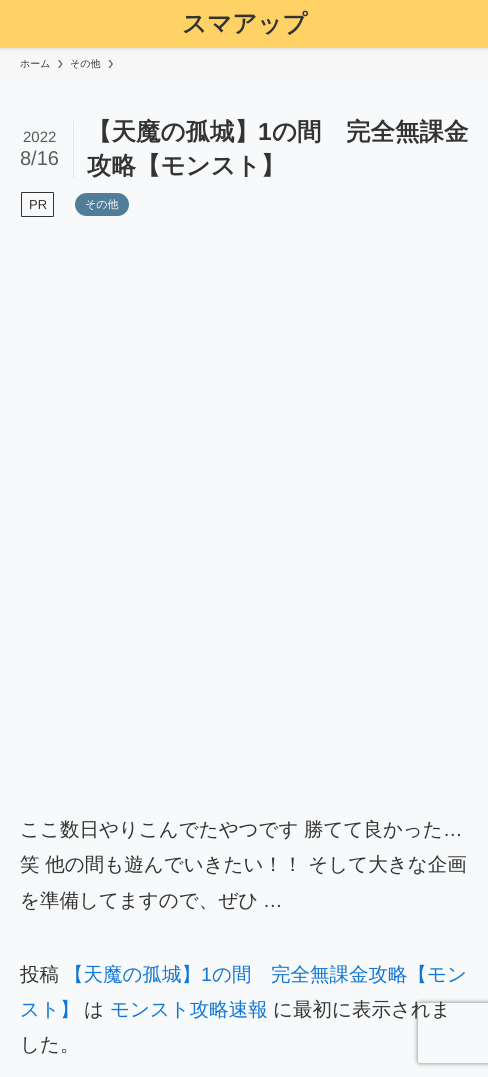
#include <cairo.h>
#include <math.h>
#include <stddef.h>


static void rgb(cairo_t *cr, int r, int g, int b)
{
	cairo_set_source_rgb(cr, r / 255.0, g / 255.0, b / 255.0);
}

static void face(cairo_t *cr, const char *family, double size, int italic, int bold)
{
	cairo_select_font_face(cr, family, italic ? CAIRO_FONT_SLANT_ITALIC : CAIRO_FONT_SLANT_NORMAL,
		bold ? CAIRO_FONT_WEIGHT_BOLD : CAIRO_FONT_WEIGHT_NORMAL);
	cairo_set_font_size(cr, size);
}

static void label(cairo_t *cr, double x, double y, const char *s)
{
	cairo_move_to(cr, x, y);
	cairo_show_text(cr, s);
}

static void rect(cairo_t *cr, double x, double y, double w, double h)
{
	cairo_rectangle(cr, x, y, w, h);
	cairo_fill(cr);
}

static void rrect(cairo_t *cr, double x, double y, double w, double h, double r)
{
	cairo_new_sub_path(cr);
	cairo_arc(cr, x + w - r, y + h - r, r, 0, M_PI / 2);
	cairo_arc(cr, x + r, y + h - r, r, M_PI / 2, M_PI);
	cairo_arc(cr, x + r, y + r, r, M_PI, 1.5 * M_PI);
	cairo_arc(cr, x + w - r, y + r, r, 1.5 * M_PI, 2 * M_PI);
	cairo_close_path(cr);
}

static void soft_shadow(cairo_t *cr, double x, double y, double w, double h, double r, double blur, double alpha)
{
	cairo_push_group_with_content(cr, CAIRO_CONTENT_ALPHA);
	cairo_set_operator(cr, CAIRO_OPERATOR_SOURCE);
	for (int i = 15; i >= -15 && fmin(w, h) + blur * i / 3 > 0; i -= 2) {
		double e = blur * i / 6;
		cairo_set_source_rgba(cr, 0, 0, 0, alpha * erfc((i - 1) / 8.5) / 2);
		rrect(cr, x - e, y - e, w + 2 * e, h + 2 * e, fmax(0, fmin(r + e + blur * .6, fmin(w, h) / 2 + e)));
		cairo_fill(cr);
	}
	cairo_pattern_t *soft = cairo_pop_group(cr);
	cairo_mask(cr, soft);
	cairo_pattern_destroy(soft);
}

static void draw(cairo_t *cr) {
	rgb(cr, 247, 249, 250);
	cairo_paint(cr);
	rgb(cr, 247, 247, 247);
	rect(cr, 0, 48, 488, 32);
	rgb(cr, 0, 0, 0);
	soft_shadow(cr, 0, 1, 488, 48, 0, 2, 0.12);
	rgb(cr, 255, 210, 102);
	rect(cr, 0, 0, 488, 48);
	face(cr, "WenQuanYi Zen Hei", 24.5, 0, 1);
	rgb(cr, 51, 51, 51);
	label(cr, 182, 32, "スマアップ");
	face(cr, "WenQuanYi Zen Hei Medium", 10, 0, 0);
	label(cr, 20, 67, "ホーム");
	rgb(cr, 90, 90, 90);
	cairo_new_path(cr);
	cairo_move_to(cr, 59.5, 60);
	cairo_line_to(cr, 58, 60);
	cairo_line_to(cr, 61, 64);
	cairo_line_to(cr, 58, 68);
	cairo_line_to(cr, 59.5, 68);
	cairo_line_to(cr, 62.5, 64);
	cairo_close_path(cr);
	cairo_fill(cr);
	rgb(cr, 51, 51, 51);
	label(cr, 70, 67, "その他");
	rgb(cr, 90, 90, 90);
	cairo_new_path(cr);
	cairo_move_to(cr, 110, 60);
	cairo_line_to(cr, 108.5, 60);
	cairo_line_to(cr, 111.5, 64);
	cairo_line_to(cr, 108.5, 68);
	cairo_line_to(cr, 110, 68);
	cairo_line_to(cr, 113, 64);
	cairo_close_path(cr);
	cairo_fill(cr);
	rgb(cr, 228, 229, 230);
	rect(cr, 73, 121, 1, 57);
	face(cr, "Liberation Sans", 15, 0, 0);
	rgb(cr, 90, 91, 91);
	label(cr, 23, 142, "2022");
	face(cr, "Liberation Sans", 20, 0, 0);
	label(cr, 20, 165, "8/16");
	face(cr, "WenQuanYi Zen Hei", 24.5, 0, 1);
	rgb(cr, 51, 51, 51);
	label(cr, 87, 140, "【天魔の孤城】");
	face(cr, "Liberation Sans", 24.5, 0, 1);
	label(cr, 258, 140, "1");
	face(cr, "WenQuanYi Zen Hei", 24.5, 0, 1);
	label(cr, 272, 140, "の間　完全無課金");
	label(cr, 87, 174, "攻略【モンスト】");
	rrect(cr, 21.5, 192.5, 32, 24, 0.5);
	cairo_set_line_width(cr, 1);
	cairo_stroke(cr);
	face(cr, "Liberation Sans", 13, 0, 0);
	label(cr, 29, 209, "PR");
	rgb(cr, 81, 125, 153);
	rrect(cr, 75, 193, 54, 23, 11.5);
	cairo_fill(cr);
	face(cr, "WenQuanYi Zen Hei Medium", 11, 0, 0);
	rgb(cr, 255, 255, 255);
	label(cr, 85, 208, "その他");
	face(cr, "WenQuanYi Zen Hei Medium", 19.5, 0, 0);
	rgb(cr, 51, 51, 51);
	label(cr, 20, 836, "ここ数日やりこんでたやつです");
	label(cr, 304, 836, "勝てて良かった");
	face(cr, "Liberation Sans", 19.5, 0, 0);
	label(cr, 443, 836, "…");
	face(cr, "WenQuanYi Zen Hei Medium", 19.5, 0, 0);
	label(cr, 20, 871, "笑 他の間も遊んでいきたい！！ そして大きな企画");
	label(cr, 20, 907, "を準備してますので、ぜひ");
	face(cr, "Liberation Sans", 19.5, 0, 0);
	label(cr, 263, 907, "…");
	face(cr, "WenQuanYi Zen Hei Medium", 19.5, 0, 0);
	label(cr, 20, 981, "投稿");
	rgb(cr, 17, 118, 212);
	label(cr, 64, 981, "【天魔の孤城】");
	face(cr, "Liberation Sans", 19.5, 0, 0);
	label(cr, 201, 981, "1");
	face(cr, "WenQuanYi Zen Hei Medium", 19.5, 0, 0);
	label(cr, 212, 981, "の間　完全無課金攻略【モン");
	label(cr, 20, 1016, "スト】");
	rgb(cr, 51, 51, 51);
	label(cr, 84, 1016, "は");
	rgb(cr, 17, 118, 212);
	label(cr, 110, 1016, "モンスト攻略速報");
	cairo_save(cr);
	cairo_set_fill_rule(cr, CAIRO_FILL_RULE_EVEN_ODD);
	cairo_new_path(cr);
	cairo_move_to(cr, 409, 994);
	cairo_line_to(cr, 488, 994);
	cairo_line_to(cr, 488, 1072);
	cairo_line_to(cr, 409, 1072);
	cairo_close_path(cr);
	cairo_move_to(cr, 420, 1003);
	cairo_line_to(cr, 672, 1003);
	cairo_curve_to(cr, 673, 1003, 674, 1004, 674, 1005);
	cairo_line_to(cr, 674, 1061);
	cairo_curve_to(cr, 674, 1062, 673, 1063, 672, 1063);
	cairo_line_to(cr, 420, 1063);
	cairo_curve_to(cr, 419, 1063, 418, 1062, 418, 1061);
	cairo_line_to(cr, 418, 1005);
	cairo_curve_to(cr, 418, 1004, 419, 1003, 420, 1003);
	cairo_close_path(cr);
	cairo_clip(cr);
	rgb(cr, 128, 128, 128);
	soft_shadow(cr, 418, 1003, 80, 60, 2, 2.5, 1);
	cairo_restore(cr);
	rgb(cr, 51, 51, 51);
	label(cr, 273, 1016, "に最初に表示されま");
	label(cr, 20, 1051, "した。");
}

int main(void) {
	cairo_surface_t *surface = cairo_image_surface_create(CAIRO_FORMAT_RGB24, 488, 1077);
	cairo_t *cr = cairo_create(surface);
	cairo_font_options_t *options = cairo_font_options_create();
	cairo_font_options_set_hint_metrics(options, CAIRO_HINT_METRICS_OFF);
	cairo_font_options_set_hint_style(options, CAIRO_HINT_STYLE_NONE);
	cairo_set_font_options(cr, options);
	cairo_set_miter_limit(cr, 4);
	draw(cr);
	cairo_surface_write_to_png(surface, "render.png");
	cairo_font_options_destroy(options);
	cairo_destroy(cr);
	cairo_surface_destroy(surface);
	return 0;
}
